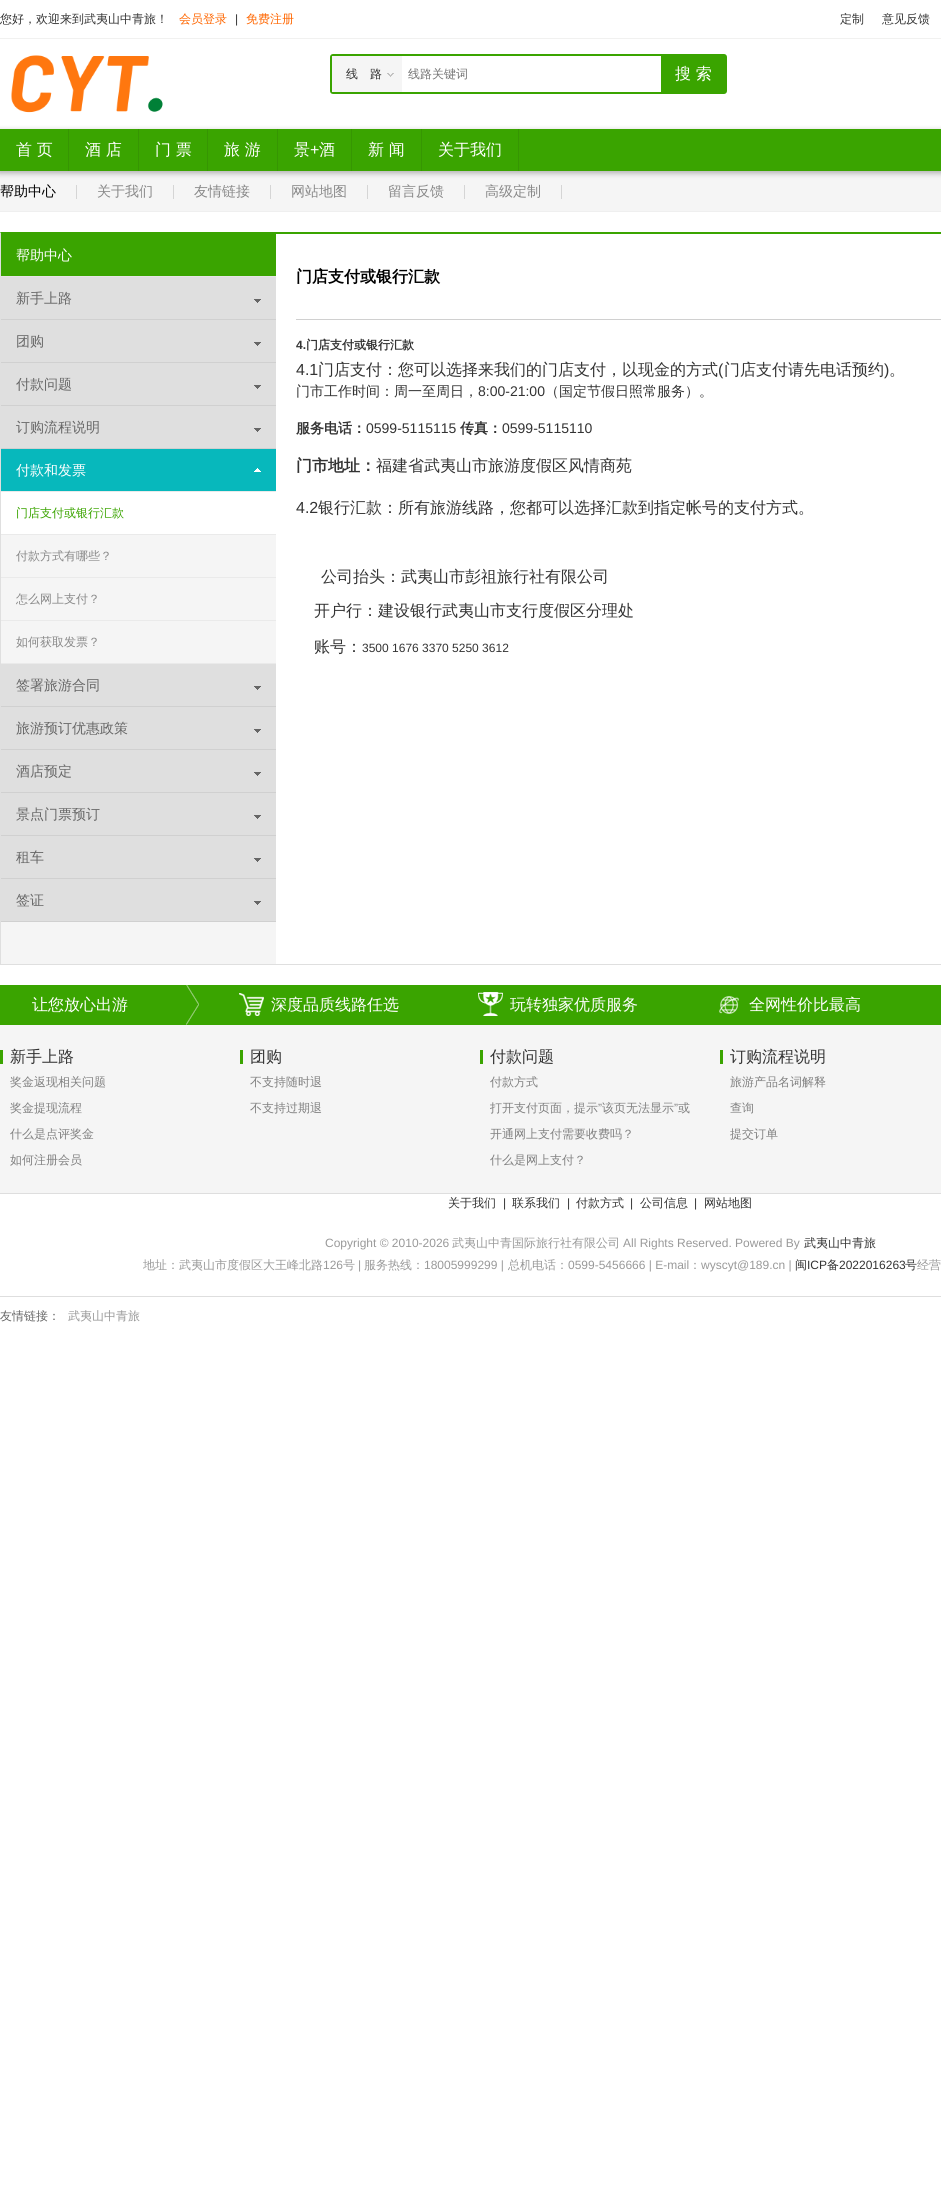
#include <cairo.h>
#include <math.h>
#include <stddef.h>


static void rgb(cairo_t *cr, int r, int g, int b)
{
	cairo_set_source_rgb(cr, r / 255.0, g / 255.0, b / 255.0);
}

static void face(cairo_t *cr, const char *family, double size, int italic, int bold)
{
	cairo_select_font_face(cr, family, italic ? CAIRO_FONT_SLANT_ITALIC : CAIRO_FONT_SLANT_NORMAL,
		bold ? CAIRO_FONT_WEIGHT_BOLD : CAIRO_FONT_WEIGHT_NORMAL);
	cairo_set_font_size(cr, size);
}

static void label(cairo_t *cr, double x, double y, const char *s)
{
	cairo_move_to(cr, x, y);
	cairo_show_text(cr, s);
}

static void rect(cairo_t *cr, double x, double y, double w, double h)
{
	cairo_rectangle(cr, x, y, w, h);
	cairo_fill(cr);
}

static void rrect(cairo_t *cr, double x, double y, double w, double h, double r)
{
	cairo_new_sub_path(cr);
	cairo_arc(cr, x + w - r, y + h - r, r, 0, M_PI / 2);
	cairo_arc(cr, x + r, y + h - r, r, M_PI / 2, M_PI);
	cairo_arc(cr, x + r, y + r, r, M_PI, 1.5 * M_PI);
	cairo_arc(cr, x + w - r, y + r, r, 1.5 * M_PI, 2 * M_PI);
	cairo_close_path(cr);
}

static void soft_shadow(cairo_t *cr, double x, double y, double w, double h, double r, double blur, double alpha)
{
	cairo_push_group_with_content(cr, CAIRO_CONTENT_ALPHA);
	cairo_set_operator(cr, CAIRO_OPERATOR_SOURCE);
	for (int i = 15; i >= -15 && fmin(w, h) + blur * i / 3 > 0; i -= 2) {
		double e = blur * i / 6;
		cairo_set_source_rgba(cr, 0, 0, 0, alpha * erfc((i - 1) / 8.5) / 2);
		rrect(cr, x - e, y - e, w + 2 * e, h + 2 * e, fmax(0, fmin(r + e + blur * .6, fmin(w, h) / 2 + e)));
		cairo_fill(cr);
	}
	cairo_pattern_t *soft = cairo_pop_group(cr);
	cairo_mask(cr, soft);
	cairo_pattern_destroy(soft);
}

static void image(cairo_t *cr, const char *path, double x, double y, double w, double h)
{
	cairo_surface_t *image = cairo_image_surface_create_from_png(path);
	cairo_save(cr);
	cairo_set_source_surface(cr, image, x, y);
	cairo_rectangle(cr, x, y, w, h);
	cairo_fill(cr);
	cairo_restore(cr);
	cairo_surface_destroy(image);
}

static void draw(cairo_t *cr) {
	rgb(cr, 255, 255, 255);
	cairo_paint(cr);
	rgb(cr, 241, 241, 240);
	rect(cr, 0, 38, 941, 1);
	face(cr, "WenQuanYi Zen Hei Medium", 12, 0, 0);
	rgb(cr, 51, 51, 51);
	label(cr, 0, 23, "您好，欢迎来到武夷山中青旅！");
	rgb(cr, 255, 102, 0);
	label(cr, 179, 23, "会员登录");
	face(cr, "Liberation Sans", 12, 0, 0);
	rgb(cr, 51, 51, 51);
	label(cr, 235, 23, "|");
	face(cr, "WenQuanYi Zen Hei Medium", 12, 0, 0);
	rgb(cr, 255, 102, 0);
	label(cr, 246, 23, "免费注册");
	rgb(cr, 51, 51, 51);
	label(cr, 840, 23, "定制");
	label(cr, 882, 23, "意见反馈");
	image(cr, "image0.png", 11, 55, 152, 58);
	rrect(cr, 331, 55, 395, 38, 2);
	rgb(cr, 58, 164, 0);
	cairo_stroke(cr);
	rgb(cr, 245, 245, 245);
	rect(cr, 332, 56, 70, 36);
	image(cr, "image1.png", 387, 73, 7, 4);
	rgb(cr, 51, 51, 51);
	label(cr, 346, 78, "线　路");
	rgb(cr, 117, 117, 117);
	label(cr, 408, 78, "线路关键词");
	rgb(cr, 58, 164, 0);
	rect(cr, 661, 56, 64, 36);
	face(cr, "WenQuanYi Zen Hei Medium", 16, 0, 0);
	rgb(cr, 255, 255, 255);
	label(cr, 675, 79, "搜 索");
	rgb(cr, 245, 245, 245);
	rect(cr, 0, 171, 941, 40);
	rgb(cr, 0, 0, 0);
	soft_shadow(cr, -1, 131, 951, 42, 0, 3, 0.3);
	rgb(cr, 58, 164, 0);
	rect(cr, 0, 129, 941, 42);
	rgb(cr, 54, 150, 2);
	rect(cr, 68, 129, 1, 42);
	rgb(cr, 255, 255, 255);
	label(cr, 16, 155, "首 页");
	rgb(cr, 54, 150, 2);
	rect(cr, 138, 129, 1, 42);
	rgb(cr, 255, 255, 255);
	label(cr, 85, 155, "酒 店");
	rgb(cr, 54, 150, 2);
	rect(cr, 207, 129, 1, 42);
	rgb(cr, 255, 255, 255);
	label(cr, 155, 155, "门 票");
	rgb(cr, 54, 150, 2);
	rect(cr, 277, 129, 1, 42);
	rgb(cr, 255, 255, 255);
	label(cr, 224, 155, "旅 游");
	rgb(cr, 54, 150, 2);
	rect(cr, 351, 129, 1, 42);
	rgb(cr, 255, 255, 255);
	label(cr, 294, 155, "景");
	face(cr, "Liberation Sans", 16, 0, 0);
	label(cr, 310, 155, "+");
	face(cr, "WenQuanYi Zen Hei Medium", 16, 0, 0);
	label(cr, 319, 155, "酒");
	rgb(cr, 54, 150, 2);
	rect(cr, 421, 129, 1, 42);
	rgb(cr, 255, 255, 255);
	label(cr, 368, 155, "新 闻");
	rgb(cr, 54, 150, 2);
	rect(cr, 518, 129, 1, 42);
	rgb(cr, 255, 255, 255);
	label(cr, 438, 155, "关于我们");
	rgb(cr, 239, 239, 239);
	rect(cr, 0, 211, 941, 1);
	rgb(cr, 213, 213, 213);
	rect(cr, 76, 185, 1, 14);
	face(cr, "WenQuanYi Zen Hei Medium", 14, 0, 0);
	rgb(cr, 0, 0, 0);
	label(cr, 0, 196, "帮助中心");
	rgb(cr, 213, 213, 213);
	rect(cr, 173, 185, 1, 14);
	rgb(cr, 136, 136, 136);
	label(cr, 97, 196, "关于我们");
	rgb(cr, 213, 213, 213);
	rect(cr, 270, 185, 1, 14);
	rgb(cr, 136, 136, 136);
	label(cr, 194, 196, "友情链接");
	rgb(cr, 213, 213, 213);
	rect(cr, 367, 185, 1, 14);
	rgb(cr, 136, 136, 136);
	label(cr, 291, 196, "网站地图");
	rgb(cr, 213, 213, 213);
	rect(cr, 464, 185, 1, 14);
	rgb(cr, 136, 136, 136);
	label(cr, 388, 196, "留言反馈");
	rgb(cr, 213, 213, 213);
	rect(cr, 561, 185, 1, 14);
	rgb(cr, 136, 136, 136);
	label(cr, 485, 196, "高级定制");
	rgb(cr, 245, 245, 245);
	rect(cr, 1, 535, 275, 429);
	rgb(cr, 58, 164, 0);
	cairo_new_path(cr);
	cairo_move_to(cr, 0, 232);
	cairo_line_to(cr, 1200, 232);
	cairo_line_to(cr, 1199, 234);
	cairo_line_to(cr, 1, 234);
	cairo_close_path(cr);
	cairo_fill(cr);
	rgb(cr, 223, 223, 223);
	rect(cr, 0, 964, 941, 1);
	cairo_new_path(cr);
	cairo_move_to(cr, 0, 965);
	cairo_line_to(cr, 0, 232);
	cairo_line_to(cr, 1, 234);
	cairo_line_to(cr, 1, 964);
	cairo_close_path(cr);
	cairo_fill(cr);
	rgb(cr, 58, 164, 0);
	rect(cr, 1, 234, 275, 42);
	rgb(cr, 229, 229, 229);
	rect(cr, 1, 276, 275, 1);
	rgb(cr, 255, 255, 255);
	label(cr, 16, 260, "帮助中心");
	rgb(cr, 223, 223, 223);
	rect(cr, 1, 277, 275, 42);
	rgb(cr, 208, 208, 208);
	rect(cr, 1, 319, 275, 1);
	image(cr, "image2.png", 254, 299, 7, 4);
	rgb(cr, 102, 102, 102);
	label(cr, 16, 303, "新手上路");
	rgb(cr, 223, 223, 223);
	rect(cr, 1, 320, 275, 42);
	rgb(cr, 208, 208, 208);
	rect(cr, 1, 362, 275, 1);
	image(cr, "image2.png", 254, 342, 7, 4);
	rgb(cr, 102, 102, 102);
	label(cr, 16, 346, "团购");
	rgb(cr, 223, 223, 223);
	rect(cr, 1, 363, 275, 42);
	rgb(cr, 208, 208, 208);
	rect(cr, 1, 405, 275, 1);
	image(cr, "image2.png", 254, 385, 7, 4);
	rgb(cr, 102, 102, 102);
	label(cr, 16, 389, "付款问题");
	rgb(cr, 223, 223, 223);
	rect(cr, 1, 406, 275, 42);
	rgb(cr, 208, 208, 208);
	rect(cr, 1, 448, 275, 1);
	image(cr, "image2.png", 254, 428, 7, 4);
	rgb(cr, 102, 102, 102);
	label(cr, 16, 432, "订购流程说明");
	rgb(cr, 7, 184, 188);
	rect(cr, 1, 449, 275, 42);
	rgb(cr, 234, 234, 234);
	rect(cr, 1, 491, 275, 1);
	image(cr, "image3.png", 254, 468, 7, 4);
	rgb(cr, 255, 255, 255);
	label(cr, 16, 475, "付款和发票");
	rgb(cr, 234, 234, 234);
	rect(cr, 1, 534, 275, 1);
	face(cr, "WenQuanYi Zen Hei Medium", 12, 0, 0);
	rgb(cr, 58, 164, 0);
	label(cr, 16, 517, "门店支付或银行汇款");
	rgb(cr, 234, 234, 234);
	rect(cr, 1, 577, 275, 1);
	rgb(cr, 136, 136, 136);
	label(cr, 16, 560, "付款方式有哪些？");
	rgb(cr, 234, 234, 234);
	rect(cr, 1, 620, 275, 1);
	rgb(cr, 136, 136, 136);
	label(cr, 16, 603, "怎么网上支付？");
	rgb(cr, 234, 234, 234);
	rect(cr, 1, 663, 275, 1);
	rgb(cr, 136, 136, 136);
	label(cr, 16, 646, "如何获取发票？");
	rgb(cr, 223, 223, 223);
	rect(cr, 1, 664, 275, 42);
	rgb(cr, 208, 208, 208);
	rect(cr, 1, 706, 275, 1);
	image(cr, "image2.png", 254, 686, 7, 4);
	face(cr, "WenQuanYi Zen Hei Medium", 14, 0, 0);
	rgb(cr, 102, 102, 102);
	label(cr, 16, 690, "签署旅游合同");
	rgb(cr, 223, 223, 223);
	rect(cr, 1, 707, 275, 42);
	rgb(cr, 208, 208, 208);
	rect(cr, 1, 749, 275, 1);
	image(cr, "image2.png", 254, 729, 7, 4);
	rgb(cr, 102, 102, 102);
	label(cr, 16, 733, "旅游预订优惠政策");
	rgb(cr, 223, 223, 223);
	rect(cr, 1, 750, 275, 42);
	rgb(cr, 208, 208, 208);
	rect(cr, 1, 792, 275, 1);
	image(cr, "image2.png", 254, 772, 7, 4);
	rgb(cr, 102, 102, 102);
	label(cr, 16, 776, "酒店预定");
	rgb(cr, 223, 223, 223);
	rect(cr, 1, 793, 275, 42);
	rgb(cr, 208, 208, 208);
	rect(cr, 1, 835, 275, 1);
	image(cr, "image2.png", 254, 815, 7, 4);
	rgb(cr, 102, 102, 102);
	label(cr, 16, 819, "景点门票预订");
	rgb(cr, 223, 223, 223);
	rect(cr, 1, 836, 275, 42);
	rgb(cr, 208, 208, 208);
	rect(cr, 1, 878, 275, 1);
	image(cr, "image2.png", 254, 858, 7, 4);
	rgb(cr, 102, 102, 102);
	label(cr, 16, 862, "租车");
	rgb(cr, 223, 223, 223);
	rect(cr, 1, 879, 275, 42);
	rgb(cr, 208, 208, 208);
	rect(cr, 1, 921, 275, 1);
	image(cr, "image2.png", 254, 901, 7, 4);
	rgb(cr, 102, 102, 102);
	label(cr, 16, 905, "签证");
	rgb(cr, 208, 208, 208);
	rect(cr, 296, 319, 645, 1);
	face(cr, "WenQuanYi Zen Hei", 16, 0, 1);
	rgb(cr, 0, 0, 0);
	label(cr, 296, 282, "门店支付或银行汇款");
	face(cr, "Liberation Sans", 12, 0, 1);
	rgb(cr, 51, 51, 51);
	label(cr, 296, 349, "4.");
	face(cr, "WenQuanYi Zen Hei", 12, 0, 1);
	label(cr, 306, 349, "门店支付或银行汇款");
	face(cr, "Liberation Sans", 16, 0, 0);
	label(cr, 296, 375, "4.1");
	face(cr, "WenQuanYi Zen Hei Medium", 16, 0, 0);
	label(cr, 318, 375, "门店支付：您可以选择来我们的门店支付，以现金的方式");
	face(cr, "Liberation Sans", 16, 0, 0);
	label(cr, 718, 375, "(");
	face(cr, "WenQuanYi Zen Hei Medium", 16, 0, 0);
	label(cr, 724, 375, "门店支付请先电话预约");
	face(cr, "Liberation Sans", 16, 0, 0);
	label(cr, 884, 375, ")");
	face(cr, "WenQuanYi Zen Hei Medium", 16, 0, 0);
	label(cr, 889, 375, "。");
	face(cr, "WenQuanYi Zen Hei Medium", 14, 0, 0);
	label(cr, 296, 396, "门市工作时间：周一至周日，");
	face(cr, "Liberation Sans", 14, 0, 0);
	label(cr, 478, 396, "8:00-21:00");
	face(cr, "WenQuanYi Zen Hei Medium", 14, 0, 0);
	label(cr, 545, 396, "（国定节假日照常服务）。");
	face(cr, "WenQuanYi Zen Hei", 14, 0, 1);
	label(cr, 296, 433, "服务电话：");
	face(cr, "Liberation Sans", 14, 0, 0);
	label(cr, 366, 433, "0599-5115115");
	face(cr, "WenQuanYi Zen Hei", 14, 0, 1);
	label(cr, 460, 433, "传真：");
	face(cr, "Liberation Sans", 14, 0, 0);
	label(cr, 502, 433, "0599-5115110");
	face(cr, "WenQuanYi Zen Hei", 16, 0, 1);
	label(cr, 296, 471, "门市地址：");
	face(cr, "WenQuanYi Zen Hei Medium", 16, 0, 0);
	label(cr, 376, 471, "福建省武夷山市旅游度假区风情商苑");
	face(cr, "Liberation Sans", 16, 0, 0);
	label(cr, 296, 513, "4.2");
	face(cr, "WenQuanYi Zen Hei Medium", 16, 0, 0);
	label(cr, 318, 513, "银行汇款：所有旅游线路，您都可以选择汇款到指定帐号的支付方式。");
	label(cr, 321, 582, "公司抬头：武夷山市彭祖旅行社有限公司");
	label(cr, 314, 616, "开户行：建设银行武夷山市支行度假区分理处");
	label(cr, 314, 652, "账号：");
	face(cr, "Liberation Sans", 12, 0, 0);
	label(cr, 362, 652, "3500 1676 3370 5250 3612");
	rgb(cr, 58, 164, 0);
	rect(cr, 0, 985, 941, 40);
	image(cr, "image4.png", 186, 985, 13, 40);
	face(cr, "WenQuanYi Zen Hei Medium", 16, 0, 0);
	rgb(cr, 255, 255, 255);
	label(cr, 32, 1010, "让您放心出游");
	image(cr, "image5.png", 239, 993, 25, 23);
	label(cr, 271, 1010, "深度品质线路任选");
	image(cr, "image6.png", 478, 992, 25, 24);
	label(cr, 510, 1010, "玩转独家优质服务");
	image(cr, "image7.png", 719, 996, 20, 18);
	label(cr, 749, 1010, "全网性价比最高");
	rgb(cr, 245, 245, 245);
	rect(cr, 0, 1025, 941, 168);
	rgb(cr, 222, 222, 222);
	rect(cr, 0, 1193, 941, 1);
	rgb(cr, 58, 164, 0);
	rect(cr, 0, 1050, 3, 14);
	rgb(cr, 51, 51, 51);
	label(cr, 10, 1062, "新手上路");
	face(cr, "WenQuanYi Zen Hei Medium", 12, 0, 0);
	rgb(cr, 128, 128, 128);
	label(cr, 10, 1086, "奖金返现相关问题");
	label(cr, 10, 1112, "奖金提现流程");
	label(cr, 10, 1138, "什么是点评奖金");
	label(cr, 10, 1164, "如何注册会员");
	rgb(cr, 58, 164, 0);
	rect(cr, 240, 1050, 3, 14);
	face(cr, "WenQuanYi Zen Hei Medium", 16, 0, 0);
	rgb(cr, 51, 51, 51);
	label(cr, 250, 1062, "团购");
	face(cr, "WenQuanYi Zen Hei Medium", 12, 0, 0);
	rgb(cr, 128, 128, 128);
	label(cr, 250, 1086, "不支持随时退");
	label(cr, 250, 1112, "不支持过期退");
	rgb(cr, 58, 164, 0);
	rect(cr, 480, 1050, 3, 14);
	face(cr, "WenQuanYi Zen Hei Medium", 16, 0, 0);
	rgb(cr, 51, 51, 51);
	label(cr, 490, 1062, "付款问题");
	face(cr, "WenQuanYi Zen Hei Medium", 12, 0, 0);
	rgb(cr, 128, 128, 128);
	label(cr, 490, 1086, "付款方式");
	label(cr, 490, 1112, "打开支付页面，提示");
	face(cr, "Liberation Sans", 12, 0, 0);
	label(cr, 598, 1112, "”");
	face(cr, "WenQuanYi Zen Hei Medium", 12, 0, 0);
	label(cr, 602, 1112, "该页无法显示");
	face(cr, "Liberation Sans", 12, 0, 0);
	label(cr, 674, 1112, "”");
	face(cr, "WenQuanYi Zen Hei Medium", 12, 0, 0);
	label(cr, 678, 1112, "或");
	label(cr, 490, 1138, "开通网上支付需要收费吗？");
	label(cr, 490, 1164, "什么是网上支付？");
	rgb(cr, 58, 164, 0);
	rect(cr, 720, 1050, 3, 14);
	face(cr, "WenQuanYi Zen Hei Medium", 16, 0, 0);
	rgb(cr, 51, 51, 51);
	label(cr, 730, 1062, "订购流程说明");
	face(cr, "WenQuanYi Zen Hei Medium", 12, 0, 0);
	rgb(cr, 128, 128, 128);
	label(cr, 730, 1086, "旅游产品名词解释");
	label(cr, 730, 1112, "查询");
	label(cr, 730, 1138, "提交订单");
	rgb(cr, 51, 51, 51);
	label(cr, 448, 1207, "关于我们");
	face(cr, "Liberation Sans", 12, 0, 0);
	label(cr, 503, 1207, "|");
	face(cr, "WenQuanYi Zen Hei Medium", 12, 0, 0);
	label(cr, 512, 1207, "联系我们");
	face(cr, "Liberation Sans", 12, 0, 0);
	label(cr, 567, 1207, "|");
	face(cr, "WenQuanYi Zen Hei Medium", 12, 0, 0);
	label(cr, 576, 1207, "付款方式");
	face(cr, "Liberation Sans", 12, 0, 0);
	label(cr, 630, 1207, "|");
	face(cr, "WenQuanYi Zen Hei Medium", 12, 0, 0);
	label(cr, 640, 1207, "公司信息");
	face(cr, "Liberation Sans", 12, 0, 0);
	label(cr, 694, 1207, "|");
	face(cr, "WenQuanYi Zen Hei Medium", 12, 0, 0);
	label(cr, 704, 1207, "网站地图");
	rgb(cr, 222, 222, 222);
	rect(cr, 0, 1296, 941, 1);
	face(cr, "Liberation Sans", 12, 0, 0);
	rgb(cr, 153, 153, 153);
	label(cr, 325, 1247, "Copyright © 2010-2026");
	face(cr, "WenQuanYi Zen Hei Medium", 12, 0, 0);
	label(cr, 452, 1247, "武夷山中青国际旅行社有限公司");
	face(cr, "Liberation Sans", 12, 0, 0);
	label(cr, 623, 1247, "All Rights Reserved. Powered By");
	face(cr, "WenQuanYi Zen Hei Medium", 12, 0, 0);
	rgb(cr, 51, 51, 51);
	label(cr, 804, 1247, "武夷山中青旅");
	rgb(cr, 153, 153, 153);
	label(cr, 143, 1269, "地址：武夷山市度假区大王峰北路");
	face(cr, "Liberation Sans", 12, 0, 0);
	label(cr, 323, 1269, "126");
	face(cr, "WenQuanYi Zen Hei Medium", 12, 0, 0);
	label(cr, 343, 1269, "号");
	face(cr, "Liberation Sans", 12, 0, 0);
	label(cr, 358, 1269, "|");
	face(cr, "WenQuanYi Zen Hei Medium", 12, 0, 0);
	label(cr, 364, 1269, "服务热线：");
	face(cr, "Liberation Sans", 12, 0, 0);
	label(cr, 424, 1269, "18005999299 |");
	face(cr, "WenQuanYi Zen Hei Medium", 12, 0, 0);
	label(cr, 508, 1269, "总机电话：");
	face(cr, "Liberation Sans", 12, 0, 0);
	label(cr, 568, 1269, "0599-5456666 | E-mail");
	face(cr, "WenQuanYi Zen Hei Medium", 12, 0, 0);
	label(cr, 689, 1269, "：");
	face(cr, "Liberation Sans", 12, 0, 0);
	label(cr, 701, 1269, "wyscyt@189.cn |");
	face(cr, "WenQuanYi Zen Hei Medium", 12, 0, 0);
	rgb(cr, 51, 51, 51);
	label(cr, 795, 1269, "闽");
	face(cr, "Liberation Sans", 12, 0, 0);
	label(cr, 807, 1269, "ICP");
	face(cr, "WenQuanYi Zen Hei Medium", 12, 0, 0);
	label(cr, 827, 1269, "备");
	face(cr, "Liberation Sans", 12, 0, 0);
	label(cr, 839, 1269, "2022016263");
	face(cr, "WenQuanYi Zen Hei Medium", 12, 0, 0);
	label(cr, 905, 1269, "号");
	rgb(cr, 153, 153, 153);
	label(cr, 917, 1269, "经营");
	rgb(cr, 102, 102, 102);
	label(cr, 0, 1320, "友情链接：");
	rgb(cr, 153, 153, 153);
	label(cr, 68, 1320, "武夷山中青旅");
}

int main(void) {
	cairo_surface_t *surface = cairo_image_surface_create(CAIRO_FORMAT_RGB24, 941, 2209);
	cairo_t *cr = cairo_create(surface);
	cairo_font_options_t *options = cairo_font_options_create();
	cairo_font_options_set_hint_metrics(options, CAIRO_HINT_METRICS_OFF);
	cairo_font_options_set_hint_style(options, CAIRO_HINT_STYLE_NONE);
	cairo_set_font_options(cr, options);
	cairo_set_miter_limit(cr, 4);
	draw(cr);
	cairo_surface_write_to_png(surface, "render.png");
	cairo_font_options_destroy(options);
	cairo_destroy(cr);
	cairo_surface_destroy(surface);
	return 0;
}
